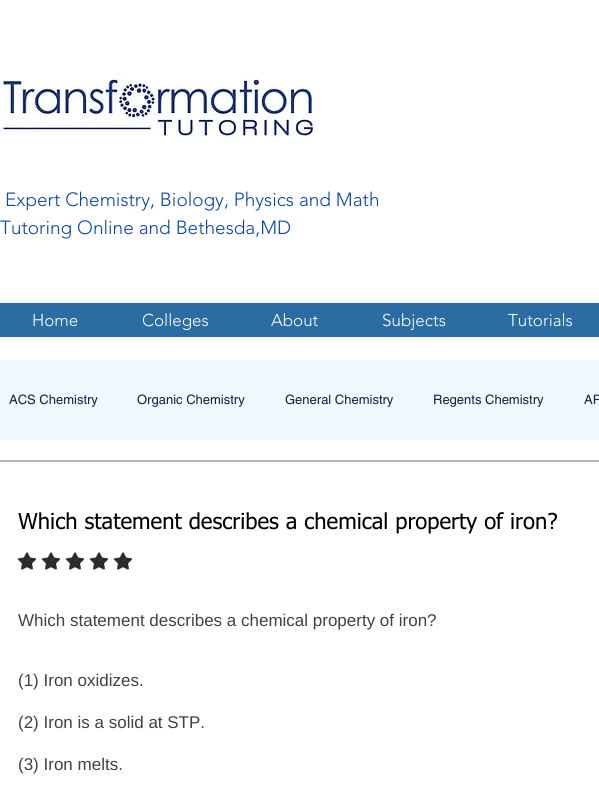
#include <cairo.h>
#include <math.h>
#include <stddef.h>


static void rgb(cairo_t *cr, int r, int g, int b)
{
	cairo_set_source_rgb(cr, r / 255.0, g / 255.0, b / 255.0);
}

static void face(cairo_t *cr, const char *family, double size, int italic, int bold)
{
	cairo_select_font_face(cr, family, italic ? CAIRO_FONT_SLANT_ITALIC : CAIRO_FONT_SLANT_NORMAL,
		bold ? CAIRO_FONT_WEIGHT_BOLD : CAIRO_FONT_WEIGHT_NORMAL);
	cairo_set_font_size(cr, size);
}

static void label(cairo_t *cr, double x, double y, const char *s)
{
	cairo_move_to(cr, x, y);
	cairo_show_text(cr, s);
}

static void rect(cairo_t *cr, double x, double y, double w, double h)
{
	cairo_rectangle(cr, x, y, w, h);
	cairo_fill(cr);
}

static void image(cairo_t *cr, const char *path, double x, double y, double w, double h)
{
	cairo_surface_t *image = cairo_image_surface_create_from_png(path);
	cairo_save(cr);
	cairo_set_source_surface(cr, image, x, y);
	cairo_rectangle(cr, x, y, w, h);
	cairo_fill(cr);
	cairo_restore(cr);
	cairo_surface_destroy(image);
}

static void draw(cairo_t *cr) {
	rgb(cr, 255, 255, 255);
	cairo_paint(cr);
	image(cr, "image0.png", 0, 73, 316, 65);
	face(cr, "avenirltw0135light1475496 Light", 19, 0, 0);
	rgb(cr, 9, 70, 171);
	label(cr, 5, 206, "Expert Chemistry, Biology, Physics and Math");
	label(cr, 0, 234, "Tutoring Online and Bethesda,MD");
	rgb(cr, 43, 108, 163);
	rect(cr, 0, 303, 599, 34);
	face(cr, "avenirltw0135light1475496 Light", 17, 0, 0);
	rgb(cr, 255, 255, 255);
	label(cr, 32, 326, "Home");
	label(cr, 142, 326, "Colleges");
	label(cr, 271, 326, "About");
	label(cr, 382, 326, "Subjects");
	label(cr, 508, 326, "Tutorials");
	rgb(cr, 239, 249, 253);
	rect(cr, 0, 360, 599, 80);
	face(cr, "helvetica", 13, 0, 0);
	rgb(cr, 25, 26, 73);
	label(cr, 9, 404, "ACS Chemistry");
	label(cr, 137, 404, "Organic Chemistry");
	label(cr, 285, 404, "General Chemistry");
	label(cr, 433, 404, "Regents Chemistry");
	label(cr, 584, 404, "AP");
	cairo_rectangle(cr, -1, 461, 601, 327);
	rgb(cr, 181, 182, 182);
	cairo_stroke(cr);
	face(cr, "tahoma", 22, 0, 0);
	rgb(cr, 0, 0, 0);
	label(cr, 18, 529, "Which statement describes a chemical property of iron?");
	image(cr, "image1.png", 18, 552, 18, 18);
	image(cr, "image1.png", 42, 552, 18, 18);
	image(cr, "image1.png", 66, 552, 18, 18);
	image(cr, "image1.png", 90, 552, 18, 18);
	image(cr, "image1.png", 114, 552, 18, 18);
	face(cr, "Liberation Sans", 17, 0, 0);
	rgb(cr, 69, 64, 64);
	label(cr, 18, 626, "Which statement describes a chemical property of iron?");
	label(cr, 18, 686, "(1) Iron oxidizes.");
	label(cr, 18, 728, "(2) Iron is a solid at STP.");
	label(cr, 18, 770, "(3) Iron melts.");
}

int main(void) {
	cairo_surface_t *surface = cairo_image_surface_create(CAIRO_FORMAT_RGB24, 599, 787);
	cairo_t *cr = cairo_create(surface);
	cairo_font_options_t *options = cairo_font_options_create();
	cairo_font_options_set_hint_metrics(options, CAIRO_HINT_METRICS_OFF);
	cairo_font_options_set_hint_style(options, CAIRO_HINT_STYLE_NONE);
	cairo_set_font_options(cr, options);
	cairo_set_miter_limit(cr, 4);
	draw(cr);
	cairo_surface_write_to_png(surface, "render.png");
	cairo_font_options_destroy(options);
	cairo_destroy(cr);
	cairo_surface_destroy(surface);
	return 0;
}
